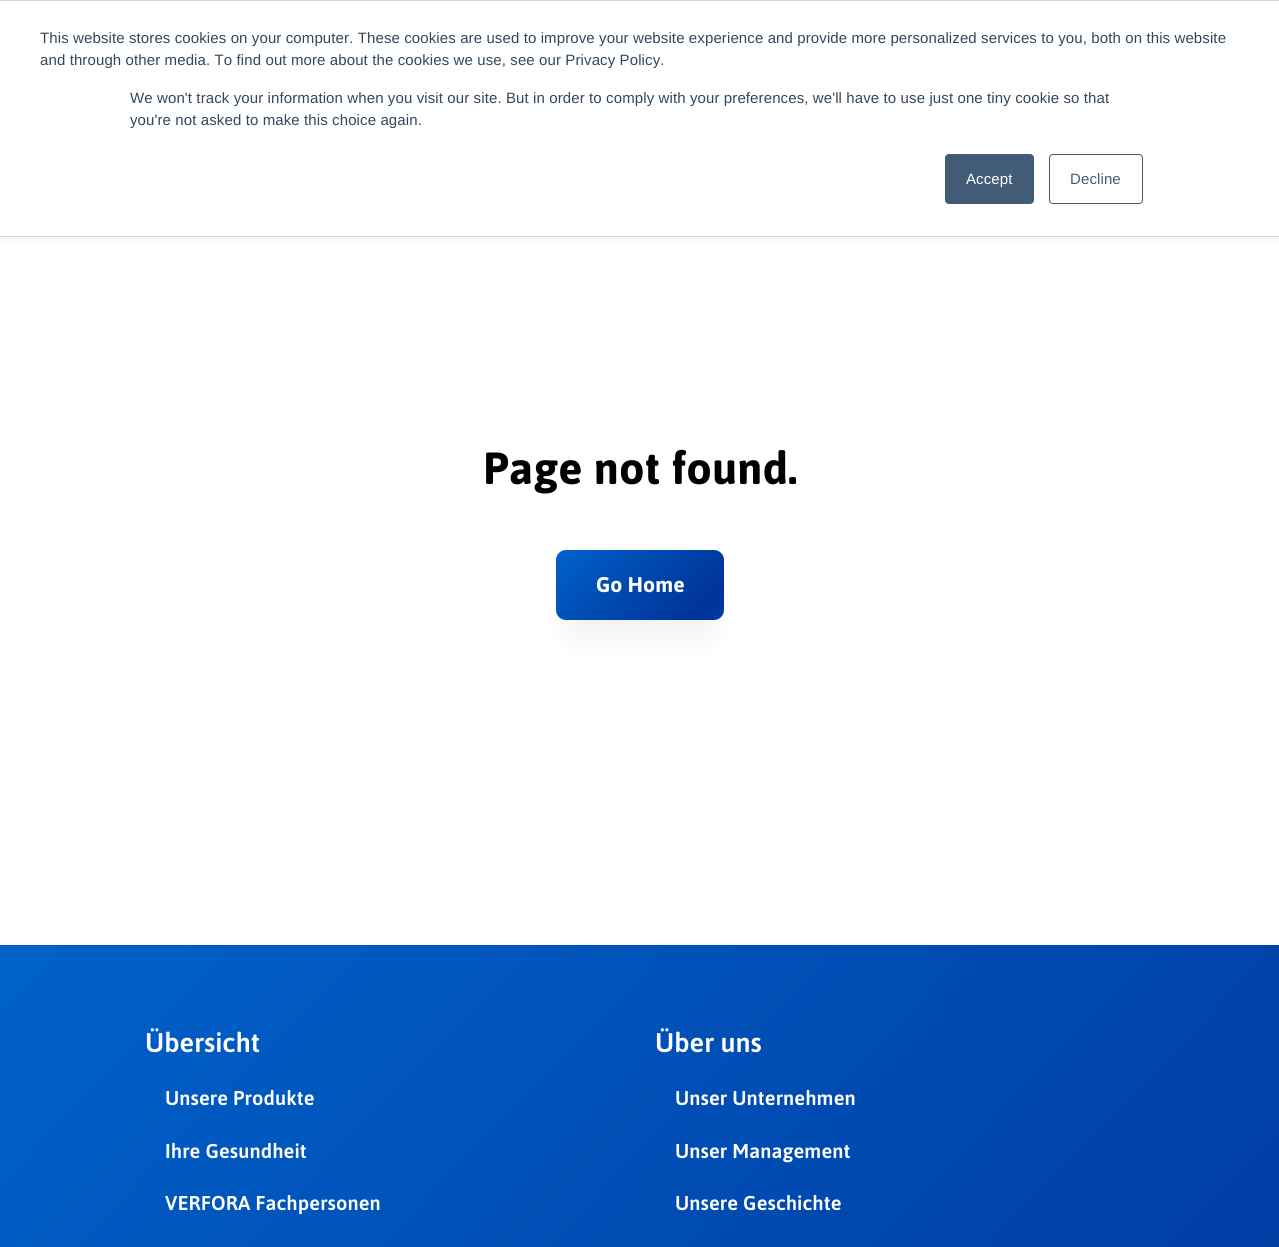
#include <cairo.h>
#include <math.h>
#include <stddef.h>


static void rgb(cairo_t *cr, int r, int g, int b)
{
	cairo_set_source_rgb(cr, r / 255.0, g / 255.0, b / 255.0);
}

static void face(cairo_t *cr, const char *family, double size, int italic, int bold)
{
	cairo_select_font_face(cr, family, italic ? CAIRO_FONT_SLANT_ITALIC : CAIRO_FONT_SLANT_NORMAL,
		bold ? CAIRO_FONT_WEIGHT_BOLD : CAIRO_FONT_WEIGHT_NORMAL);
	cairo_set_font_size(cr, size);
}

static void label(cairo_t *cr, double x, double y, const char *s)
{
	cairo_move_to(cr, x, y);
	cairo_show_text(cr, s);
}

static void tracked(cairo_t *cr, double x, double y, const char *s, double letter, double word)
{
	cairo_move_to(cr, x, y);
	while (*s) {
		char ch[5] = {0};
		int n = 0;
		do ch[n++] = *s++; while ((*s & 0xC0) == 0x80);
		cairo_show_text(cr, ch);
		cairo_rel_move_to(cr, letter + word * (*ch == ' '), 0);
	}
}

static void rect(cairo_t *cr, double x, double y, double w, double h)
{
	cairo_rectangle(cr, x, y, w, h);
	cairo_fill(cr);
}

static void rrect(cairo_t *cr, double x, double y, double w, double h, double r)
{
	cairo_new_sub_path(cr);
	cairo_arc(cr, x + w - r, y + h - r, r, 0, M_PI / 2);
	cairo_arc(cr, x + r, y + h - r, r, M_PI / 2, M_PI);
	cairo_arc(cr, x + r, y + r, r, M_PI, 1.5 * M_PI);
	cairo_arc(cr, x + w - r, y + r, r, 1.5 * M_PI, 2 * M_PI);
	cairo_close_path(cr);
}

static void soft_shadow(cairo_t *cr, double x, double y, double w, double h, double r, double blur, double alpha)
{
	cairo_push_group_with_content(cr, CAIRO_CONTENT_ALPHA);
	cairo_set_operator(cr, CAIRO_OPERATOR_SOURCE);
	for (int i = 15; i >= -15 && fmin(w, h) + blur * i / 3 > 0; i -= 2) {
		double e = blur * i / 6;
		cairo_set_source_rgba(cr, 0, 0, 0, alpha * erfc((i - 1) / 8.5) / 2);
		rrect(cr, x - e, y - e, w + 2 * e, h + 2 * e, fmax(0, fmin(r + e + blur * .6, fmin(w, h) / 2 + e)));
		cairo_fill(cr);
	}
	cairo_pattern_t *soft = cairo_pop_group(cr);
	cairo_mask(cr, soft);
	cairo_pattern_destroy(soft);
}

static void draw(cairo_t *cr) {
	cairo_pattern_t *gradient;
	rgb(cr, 255, 255, 255);
	cairo_paint(cr);
	rgb(cr, 234, 240, 246);
	soft_shadow(cr, 0, 1, 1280, 238, 0, 3, 1);
	rgb(cr, 255, 255, 255);
	rect(cr, 0, 1, 1279, 237);
	rgb(cr, 203, 214, 226);
	rect(cr, 0, 0, 1279, 1);
	rect(cr, 0, 236, 1279, 1);
	face(cr, "Liberation Sans", 15, 0, 0);
	rgb(cr, 51, 71, 91);
	tracked(cr, 40, 43, "This website stores cookies on your computer. These cookies are used to improve your website experience and provide more personalized services to you, both on this website", 0.11, 0);
	tracked(cr, 40, 65, "and through other media. To find out more about the cookies we use, see our Privacy Policy.", 0.11, 0);
	tracked(cr, 130, 103, "We won't track your information when you visit our site. But in order to comply with your preferences, we'll have to use just one tiny cookie so that", 0.11, 0);
	tracked(cr, 130, 125, "you're not asked to make this choice again.", 0.11, 0);
	rgb(cr, 66, 91, 118);
	rrect(cr, 945.5, 154.5, 88, 49, 3.5);
	cairo_fill_preserve(cr);
	cairo_set_line_width(cr, 1);
	cairo_stroke(cr);
	rgb(cr, 255, 255, 255);
	tracked(cr, 966, 184, "Accept", 0.11, 0);
	rrect(cr, 1049.5, 154.5, 93, 49, 3.5);
	rgb(cr, 66, 91, 118);
	cairo_stroke(cr);
	tracked(cr, 1070, 184, "Decline", 0.11, 0);
	face(cr, "Asap", 45, 0, 1);
	rgb(cr, 0, 0, 0);
	tracked(cr, 483, 484, "Page not found.", 0.2, 0);
	rgb(cr, 2, 3, 32);
	soft_shadow(cr, 576, 600, 128, 30, 0, 20, 0.08);
	gradient = cairo_pattern_create_linear(623, 484, 825, 686);
	cairo_pattern_add_color_stop_rgba(gradient, 0, 0, 0.384, 0.788, 1);
	cairo_pattern_add_color_stop_rgba(gradient, 0.5, 0, 0.2, 0.6, 1);
	cairo_pattern_add_color_stop_rgba(gradient, 1, 0, 0.384, 0.788, 1);
	cairo_set_source(cr, gradient);
	cairo_pattern_destroy(gradient);
	rrect(cr, 556, 550, 168, 70, 10);
	cairo_fill(cr);
	face(cr, "Asap", 21.25, 0, 1);
	rgb(cr, 255, 255, 255);
	label(cr, 596, 592, "Go Home");
	gradient = cairo_pattern_create_linear(114, 827, 1166, 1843);
	cairo_pattern_add_color_stop_rgba(gradient, 0, 0, 0.384, 0.788, 1);
	cairo_pattern_add_color_stop_rgba(gradient, 1, 0, 0.2, 0.6, 1);
	cairo_set_source(cr, gradient);
	cairo_pattern_destroy(gradient);
	rect(cr, 0, 945, 1279, 302);
	face(cr, "Asap SemiBold", 27, 0, 0);
	rgb(cr, 255, 255, 255);
	label(cr, 145, 1052, "Übersicht");
	face(cr, "Asap SemiBold", 20, 0, 0);
	tracked(cr, 165, 1105, "Unsere Produkte", 0.11, 0);
	tracked(cr, 165, 1158, "Ihre Gesundheit", 0.11, 0);
	tracked(cr, 165, 1210, "VERFORA Fachpersonen", 0.11, 0);
	face(cr, "Asap SemiBold", 27, 0, 0);
	label(cr, 655, 1052, "Über uns");
	face(cr, "Asap SemiBold", 20, 0, 0);
	tracked(cr, 675, 1105, "Unser Unternehmen", 0.11, 0);
	tracked(cr, 675, 1158, "Unser Management", 0.11, 0);
	tracked(cr, 675, 1210, "Unsere Geschichte", 0.11, 0);
}

int main(void) {
	cairo_surface_t *surface = cairo_image_surface_create(CAIRO_FORMAT_RGB24, 1279, 1247);
	cairo_t *cr = cairo_create(surface);
	cairo_font_options_t *options = cairo_font_options_create();
	cairo_font_options_set_hint_metrics(options, CAIRO_HINT_METRICS_OFF);
	cairo_font_options_set_hint_style(options, CAIRO_HINT_STYLE_NONE);
	cairo_set_font_options(cr, options);
	cairo_set_miter_limit(cr, 4);
	draw(cr);
	cairo_surface_write_to_png(surface, "render.png");
	cairo_font_options_destroy(options);
	cairo_destroy(cr);
	cairo_surface_destroy(surface);
	return 0;
}
